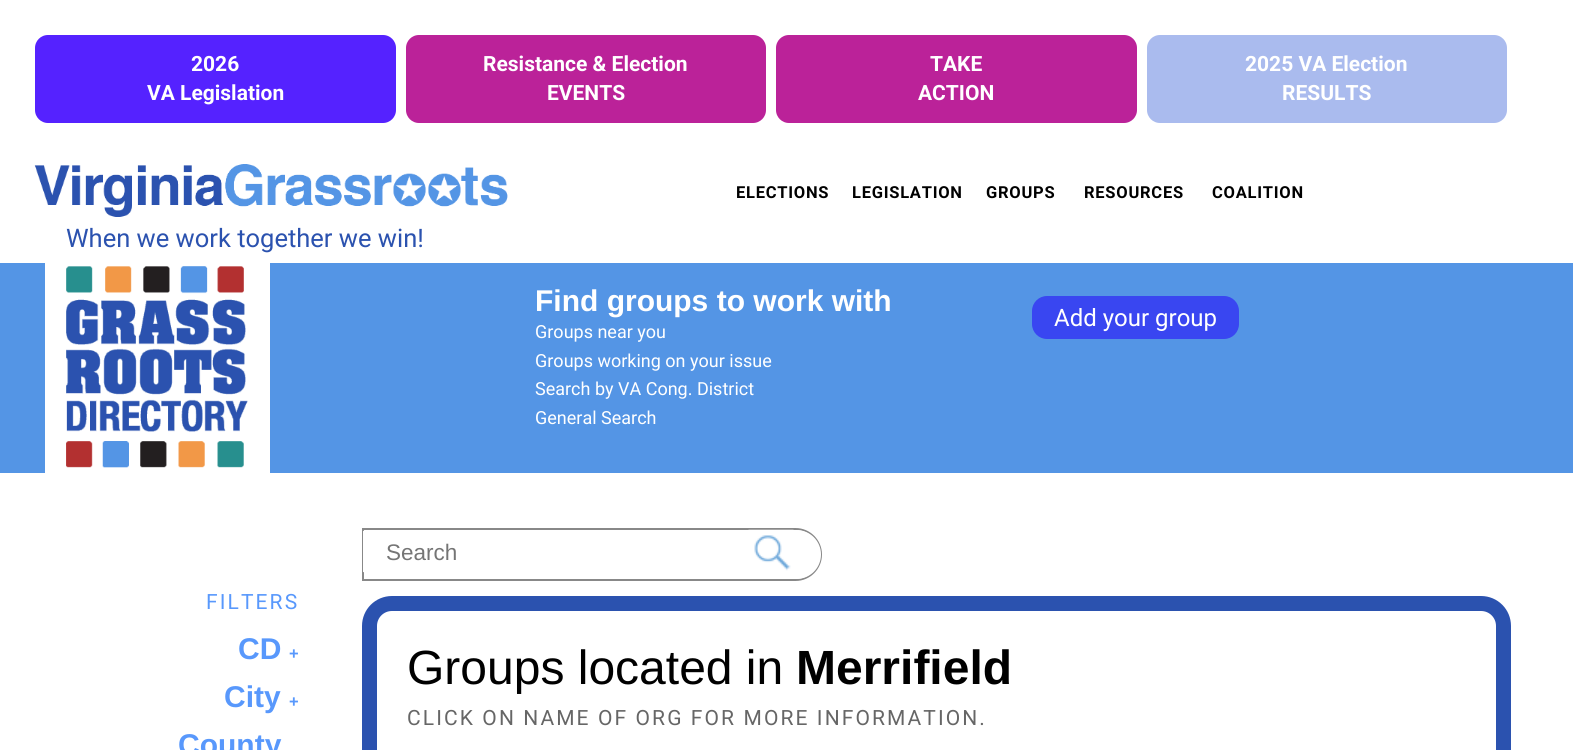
#include <cairo.h>
#include <math.h>
#include <stddef.h>


static void rgb(cairo_t *cr, int r, int g, int b)
{
	cairo_set_source_rgb(cr, r / 255.0, g / 255.0, b / 255.0);
}

static void face(cairo_t *cr, const char *family, double size, int italic, int bold)
{
	cairo_select_font_face(cr, family, italic ? CAIRO_FONT_SLANT_ITALIC : CAIRO_FONT_SLANT_NORMAL,
		bold ? CAIRO_FONT_WEIGHT_BOLD : CAIRO_FONT_WEIGHT_NORMAL);
	cairo_set_font_size(cr, size);
}

static void label(cairo_t *cr, double x, double y, const char *s)
{
	cairo_move_to(cr, x, y);
	cairo_show_text(cr, s);
}

static void tracked(cairo_t *cr, double x, double y, const char *s, double letter, double word)
{
	cairo_move_to(cr, x, y);
	while (*s) {
		char ch[5] = {0};
		int n = 0;
		do ch[n++] = *s++; while ((*s & 0xC0) == 0x80);
		cairo_show_text(cr, ch);
		cairo_rel_move_to(cr, letter + word * (*ch == ' '), 0);
	}
}

static void rect(cairo_t *cr, double x, double y, double w, double h)
{
	cairo_rectangle(cr, x, y, w, h);
	cairo_fill(cr);
}

static void rrect(cairo_t *cr, double x, double y, double w, double h, double r)
{
	cairo_new_sub_path(cr);
	cairo_arc(cr, x + w - r, y + h - r, r, 0, M_PI / 2);
	cairo_arc(cr, x + r, y + h - r, r, M_PI / 2, M_PI);
	cairo_arc(cr, x + r, y + r, r, M_PI, 1.5 * M_PI);
	cairo_arc(cr, x + w - r, y + r, r, 1.5 * M_PI, 2 * M_PI);
	cairo_close_path(cr);
}

static void image(cairo_t *cr, const char *path, double x, double y, double w, double h)
{
	cairo_surface_t *image = cairo_image_surface_create_from_png(path);
	cairo_save(cr);
	cairo_set_source_surface(cr, image, x, y);
	cairo_rectangle(cr, x, y, w, h);
	cairo_fill(cr);
	cairo_restore(cr);
	cairo_surface_destroy(image);
}

static void draw(cairo_t *cr) {
	rgb(cr, 255, 255, 255);
	cairo_paint(cr);
	rgb(cr, 85, 34, 255);
	rrect(cr, 32.5, 32.5, 366, 93, 15.5);
	cairo_fill_preserve(cr);
	rgb(cr, 255, 255, 255);
	cairo_set_line_width(cr, 5);
	cairo_stroke(cr);
	face(cr, "Roboto", 21, 0, 1);
	label(cr, 191, 71, "2026");
	label(cr, 147, 100, "VA Legislation");
	rgb(cr, 187, 34, 153);
	rrect(cr, 403.5, 32.5, 365, 93, 15.5);
	cairo_fill_preserve(cr);
	rgb(cr, 255, 255, 255);
	cairo_stroke(cr);
	label(cr, 483, 71, "Resistance & Election");
	label(cr, 547, 100, "EVENTS");
	rgb(cr, 187, 34, 153);
	rrect(cr, 773.5, 32.5, 366, 93, 15.5);
	cairo_fill_preserve(cr);
	rgb(cr, 255, 255, 255);
	cairo_stroke(cr);
	label(cr, 930, 71, "TAKE");
	label(cr, 918, 100, "ACTION");
	rgb(cr, 170, 187, 238);
	rrect(cr, 1144.5, 32.5, 365, 93, 15.5);
	cairo_fill_preserve(cr);
	rgb(cr, 255, 255, 255);
	cairo_stroke(cr);
	label(cr, 1245, 71, "2025 VA Election");
	label(cr, 1282, 100, "RESULTS");
	image(cr, "image0.png", 34, 164, 474, 53);
	face(cr, "Roboto", 16.5, 0, 1);
	rgb(cr, 0, 0, 0);
	tracked(cr, 736, 198, "ELECTIONS", 0.75, 0);
	tracked(cr, 852, 198, "LEGISLATION", 0.75, 0);
	tracked(cr, 986, 198, "GROUPS", 0.75, 0);
	tracked(cr, 1084, 198, "RESOURCES", 0.75, 0);
	tracked(cr, 1212, 198, "COALITION", 0.75, 0);
	face(cr, "Roboto", 25.5, 0, 0);
	rgb(cr, 43, 82, 175);
	label(cr, 66, 247, "When we work together we win!");
	rgb(cr, 84, 149, 229);
	rect(cr, 0, 263, 1573, 210);
	image(cr, "image1.png", 45, 263, 225, 210);
	face(cr, "Liberation Sans", 30, 0, 1);
	rgb(cr, 255, 255, 255);
	label(cr, 535, 311, "Find groups to work with");
	face(cr, "Roboto", 18, 0, 0);
	label(cr, 535, 338, "Groups near you");
	label(cr, 535, 367, "Groups working on your issue");
	label(cr, 535, 395, "Search by VA Cong. District");
	label(cr, 535, 424, "General Search");
	rgb(cr, 57, 70, 241);
	rrect(cr, 1032, 296, 207, 43, 15);
	cairo_fill(cr);
	face(cr, "Roboto", 24, 0, 0);
	rgb(cr, 255, 255, 255);
	label(cr, 1054, 326, "Add your group");
	face(cr, "Roboto", 21, 0, 0);
	rgb(cr, 88, 152, 252);
	tracked(cr, 206, 609, "FILTERS", 2.1, 0);
	face(cr, "Liberation Sans", 30, 0, 1);
	label(cr, 238, 659, "CD");
	face(cr, "Liberation Sans", 16.5, 0, 1);
	label(cr, 289, 659, "+");
	face(cr, "Liberation Sans", 30, 0, 1);
	label(cr, 224, 707, "City");
	face(cr, "Liberation Sans", 16.5, 0, 1);
	label(cr, 289, 707, "+");
	face(cr, "Liberation Sans", 30, 0, 1);
	label(cr, 178, 755, "County");
	cairo_new_path(cr);
	cairo_move_to(cr, 363, 529);
	cairo_line_to(cr, 795.5, 529);
	cairo_curve_to(cr, 809.5, 529, 821, 540.5, 821, 554.5);
	cairo_curve_to(cr, 821, 568.5, 809.5, 580, 795.5, 580);
	cairo_line_to(cr, 363, 580);
	cairo_close_path(cr);
	rgb(cr, 136, 136, 136);
	cairo_set_line_width(cr, 2);
	cairo_stroke(cr);
	cairo_save(cr);
	cairo_new_path(cr);
	cairo_move_to(cr, 363, 530);
	cairo_line_to(cr, 796.5, 530);
	cairo_curve_to(cr, 810, 530, 821, 541, 821, 554.5);
	cairo_curve_to(cr, 821, 568, 810, 579, 796.5, 579);
	cairo_line_to(cr, 363, 579);
	cairo_close_path(cr);
	cairo_clip(cr);
	rgb(cr, 255, 255, 255);
	rrect(cr, 356, 530, 366, 43, 12);
	cairo_fill(cr);
	cairo_restore(cr);
	face(cr, "Liberation Sans", 22.5, 0, 0);
	rgb(cr, 117, 117, 117);
	label(cr, 386, 560, "Search");
	rgb(cr, 255, 255, 255);
	cairo_new_path(cr);
	cairo_move_to(cr, 729, 530);
	cairo_line_to(cr, 796.5, 530);
	cairo_curve_to(cr, 810, 530, 821, 541, 821, 554.5);
	cairo_curve_to(cr, 821, 568, 810, 579, 796.5, 579);
	cairo_line_to(cr, 729, 579);
	cairo_close_path(cr);
	cairo_fill(cr);
	image(cr, "image2.png", 748, 529, 46, 42);
	cairo_new_path(cr);
	cairo_move_to(cr, 392, 603.5);
	cairo_line_to(cr, 1481, 603.5);
	cairo_curve_to(cr, 1493.5, 603.5, 1503.5, 613.5, 1503.5, 626);
	cairo_line_to(cr, 1503.5, 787.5);
	cairo_line_to(cr, 369.5, 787.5);
	cairo_line_to(cr, 369.5, 626);
	cairo_curve_to(cr, 369.5, 613.5, 379.5, 603.5, 392, 603.5);
	cairo_close_path(cr);
	rgb(cr, 43, 82, 175);
	cairo_set_line_width(cr, 15);
	cairo_stroke(cr);
	face(cr, "Liberation Sans", 48, 0, 0);
	rgb(cr, 0, 0, 0);
	label(cr, 407, 684, "Groups located in");
	face(cr, "Liberation Sans", 48, 0, 1);
	label(cr, 796, 684, "Merrifield");
	face(cr, "Roboto", 21, 0, 0);
	rgb(cr, 102, 102, 102);
	tracked(cr, 407, 725, "CLICK ON NAME OF ORG FOR MORE INFORMATION.", 2.1, 0);
}

int main(void) {
	cairo_surface_t *surface = cairo_image_surface_create(CAIRO_FORMAT_RGB24, 1573, 750);
	cairo_t *cr = cairo_create(surface);
	cairo_font_options_t *options = cairo_font_options_create();
	cairo_font_options_set_hint_metrics(options, CAIRO_HINT_METRICS_OFF);
	cairo_font_options_set_hint_style(options, CAIRO_HINT_STYLE_NONE);
	cairo_set_font_options(cr, options);
	cairo_set_miter_limit(cr, 4);
	draw(cr);
	cairo_surface_write_to_png(surface, "render.png");
	cairo_font_options_destroy(options);
	cairo_destroy(cr);
	cairo_surface_destroy(surface);
	return 0;
}
